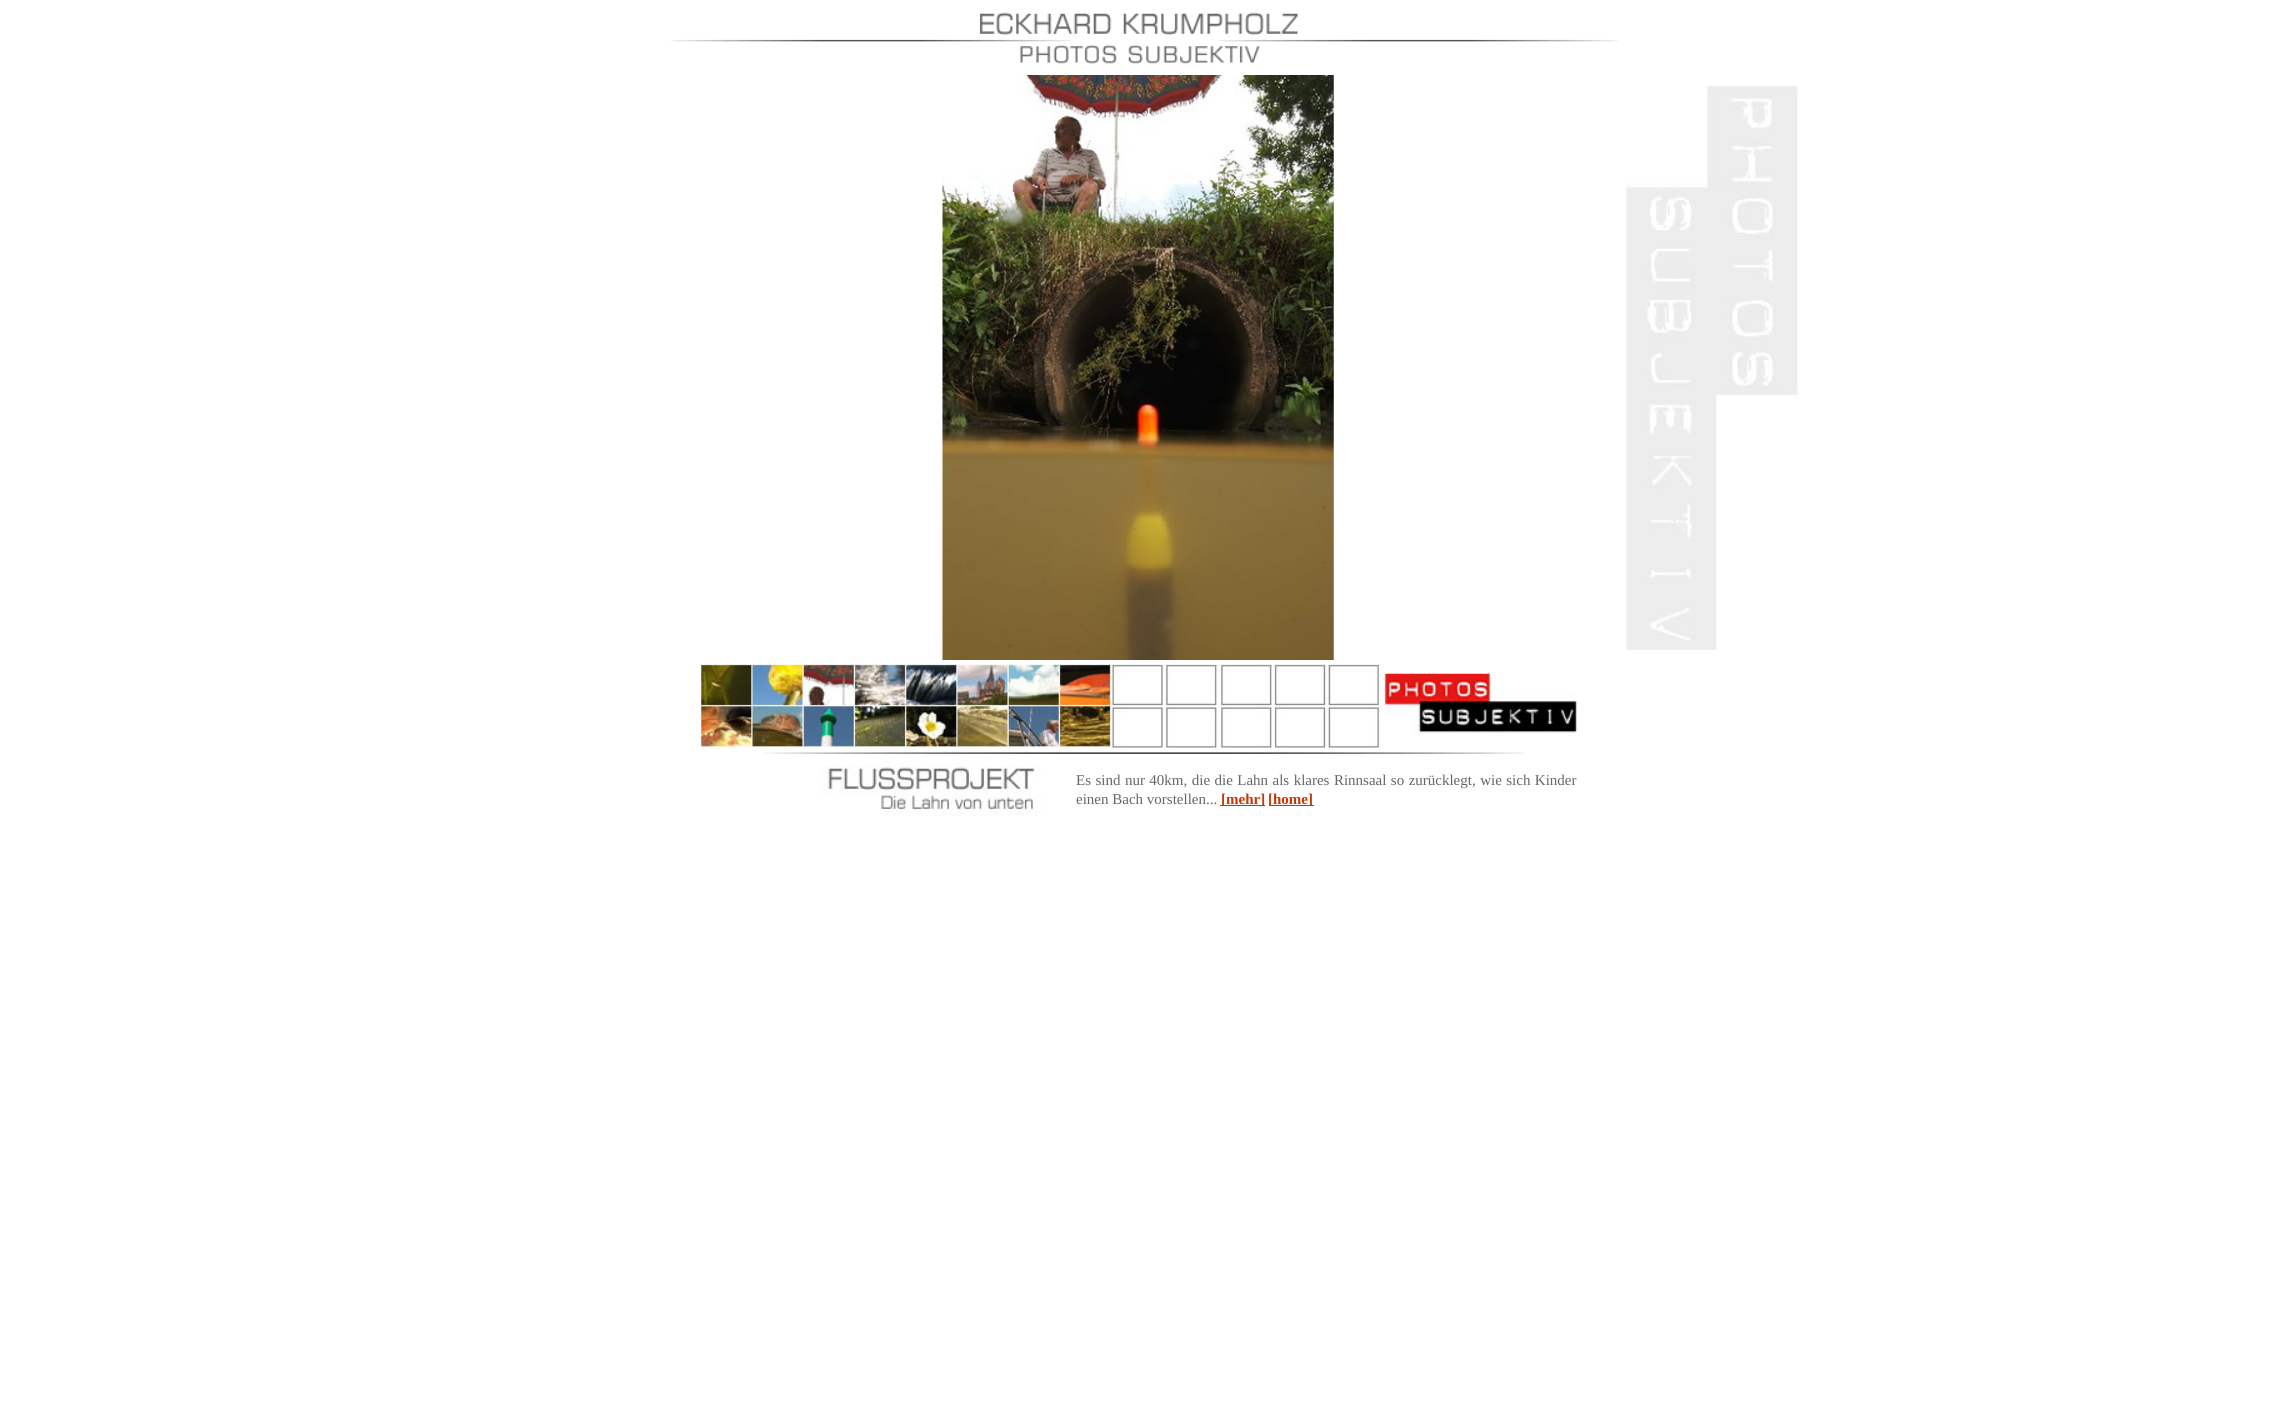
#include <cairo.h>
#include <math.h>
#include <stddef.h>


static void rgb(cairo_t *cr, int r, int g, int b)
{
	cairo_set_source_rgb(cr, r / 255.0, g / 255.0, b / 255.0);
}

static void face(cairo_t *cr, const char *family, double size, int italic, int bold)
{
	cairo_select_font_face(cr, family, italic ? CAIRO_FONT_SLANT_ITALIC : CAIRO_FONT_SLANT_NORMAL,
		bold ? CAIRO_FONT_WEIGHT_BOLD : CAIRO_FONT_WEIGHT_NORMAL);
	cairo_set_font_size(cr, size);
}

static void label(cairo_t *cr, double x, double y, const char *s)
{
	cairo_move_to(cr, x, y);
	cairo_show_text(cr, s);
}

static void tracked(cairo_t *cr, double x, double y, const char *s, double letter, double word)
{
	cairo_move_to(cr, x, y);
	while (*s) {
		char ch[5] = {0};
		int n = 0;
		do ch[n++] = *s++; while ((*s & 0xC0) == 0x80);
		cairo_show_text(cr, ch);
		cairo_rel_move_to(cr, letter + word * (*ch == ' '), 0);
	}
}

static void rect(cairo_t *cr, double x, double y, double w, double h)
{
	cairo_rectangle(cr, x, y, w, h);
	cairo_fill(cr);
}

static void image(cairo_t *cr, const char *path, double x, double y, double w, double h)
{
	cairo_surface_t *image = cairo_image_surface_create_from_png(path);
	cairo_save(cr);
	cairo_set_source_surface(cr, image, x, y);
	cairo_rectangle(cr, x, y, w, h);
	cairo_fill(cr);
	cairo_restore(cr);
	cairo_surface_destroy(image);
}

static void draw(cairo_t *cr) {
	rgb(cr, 255, 255, 255);
	cairo_paint(cr);
	image(cr, "image0.png", 1626, 85, 173, 565);
	image(cr, "image1.png", 671, 12, 947, 52);
	image(cr, "image2.png", 942, 75, 392, 585);
	image(cr, "image3.png", 701, 663, 876, 85);
	image(cr, "image4.png", 764, 752, 761, 2);
	image(cr, "image5.png", 821, 766, 220, 50);
	face(cr, "Liberation Serif", 15, 0, 0);
	rgb(cr, 102, 102, 102);
	tracked(cr, 1076, 785, "Es sind nur 40km, die die Lahn als klares Rinnsaal so zurücklegt, wie sich Kinder", 0, 0.7);
	label(cr, 1076, 804, "einen Bach vorstellen...");
	rgb(cr, 205, 51, 1);
	rect(cr, 1220, 805, 45, 1);
	face(cr, "Liberation Serif", 15, 0, 1);
	label(cr, 1221, 804, "[mehr]");
	rect(cr, 1269, 805, 45, 1);
	label(cr, 1268, 804, "[home]");
}

int main(void) {
	cairo_surface_t *surface = cairo_image_surface_create(CAIRO_FORMAT_RGB24, 2286, 1412);
	cairo_t *cr = cairo_create(surface);
	cairo_font_options_t *options = cairo_font_options_create();
	cairo_font_options_set_hint_metrics(options, CAIRO_HINT_METRICS_OFF);
	cairo_font_options_set_hint_style(options, CAIRO_HINT_STYLE_NONE);
	cairo_set_font_options(cr, options);
	cairo_set_miter_limit(cr, 4);
	draw(cr);
	cairo_surface_write_to_png(surface, "render.png");
	cairo_font_options_destroy(options);
	cairo_destroy(cr);
	cairo_surface_destroy(surface);
	return 0;
}
